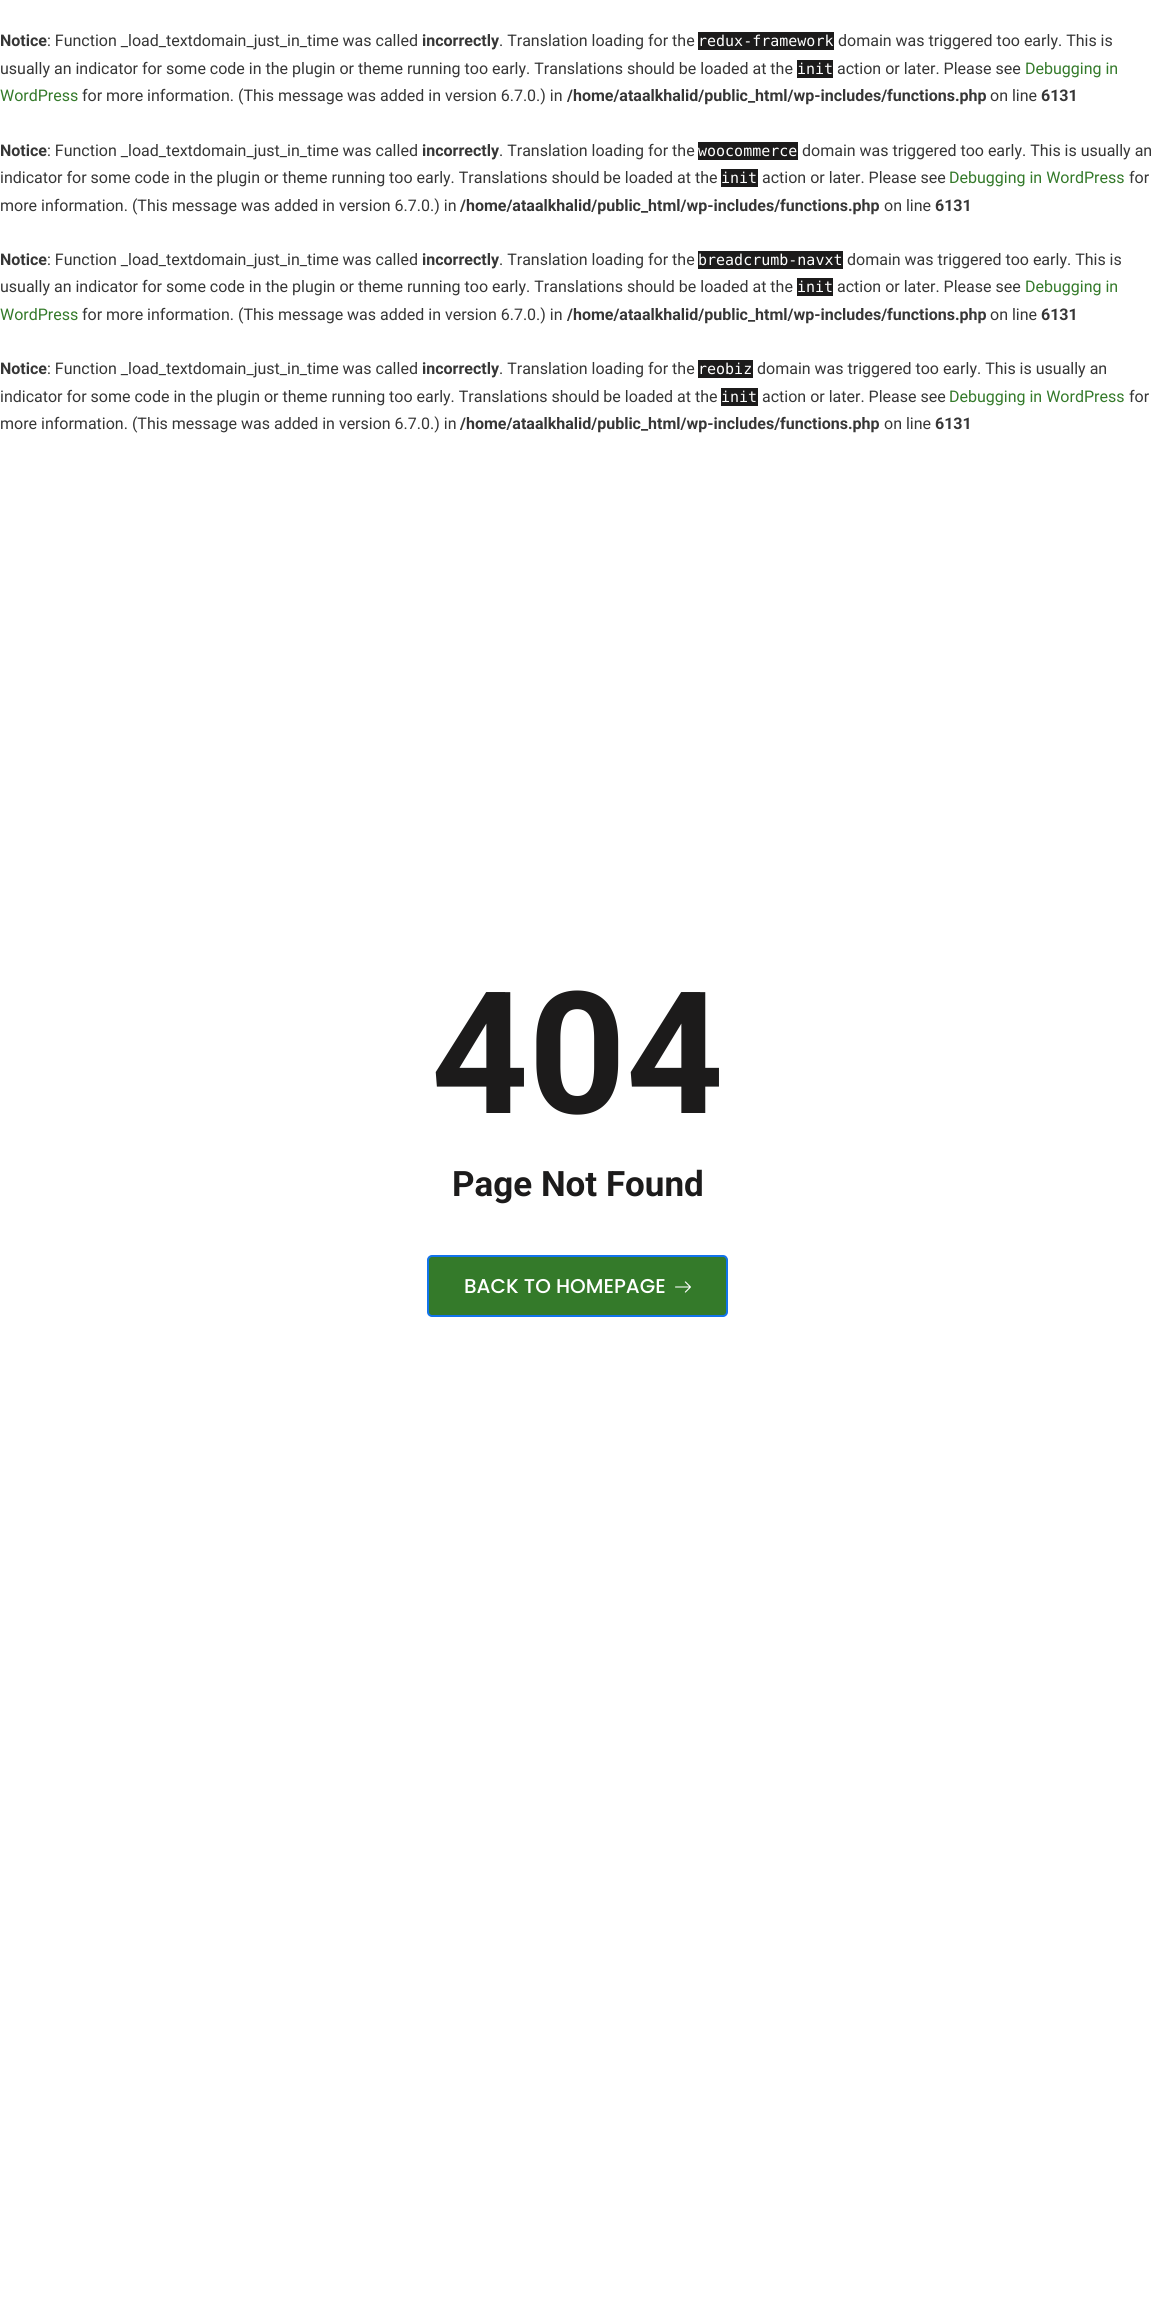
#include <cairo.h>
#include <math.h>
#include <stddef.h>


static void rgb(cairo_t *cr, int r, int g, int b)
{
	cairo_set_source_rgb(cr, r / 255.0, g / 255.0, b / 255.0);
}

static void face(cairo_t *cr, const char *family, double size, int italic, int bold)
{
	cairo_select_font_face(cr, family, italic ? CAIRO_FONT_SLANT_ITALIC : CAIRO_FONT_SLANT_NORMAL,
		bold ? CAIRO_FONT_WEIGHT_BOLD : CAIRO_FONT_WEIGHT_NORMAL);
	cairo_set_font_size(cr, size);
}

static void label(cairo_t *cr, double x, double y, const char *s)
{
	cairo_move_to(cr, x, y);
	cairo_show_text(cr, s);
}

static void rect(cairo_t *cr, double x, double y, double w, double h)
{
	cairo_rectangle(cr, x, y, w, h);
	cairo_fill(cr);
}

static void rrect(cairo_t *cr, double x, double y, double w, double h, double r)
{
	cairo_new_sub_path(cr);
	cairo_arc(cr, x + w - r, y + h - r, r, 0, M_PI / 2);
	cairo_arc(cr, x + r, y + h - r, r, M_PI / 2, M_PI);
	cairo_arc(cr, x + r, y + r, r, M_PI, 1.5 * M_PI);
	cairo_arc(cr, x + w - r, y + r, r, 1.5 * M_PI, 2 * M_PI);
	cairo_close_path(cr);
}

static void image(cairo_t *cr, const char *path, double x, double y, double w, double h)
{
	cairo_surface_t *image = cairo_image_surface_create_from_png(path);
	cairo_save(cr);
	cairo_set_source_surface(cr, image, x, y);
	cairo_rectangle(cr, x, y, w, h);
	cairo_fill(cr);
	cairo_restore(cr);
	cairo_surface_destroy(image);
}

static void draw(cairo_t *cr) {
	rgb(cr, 255, 255, 255);
	cairo_paint(cr);
	face(cr, "Roboto", 16, 0, 1);
	rgb(cr, 54, 54, 54);
	label(cr, 0, 46, "Notice");
	face(cr, "Roboto", 16, 0, 0);
	label(cr, 47, 46, ": Function _load_textdomain_just_in_time was called");
	face(cr, "Roboto", 16, 0, 1);
	label(cr, 422, 46, "incorrectly");
	face(cr, "Roboto", 16, 0, 0);
	label(cr, 499, 46, ". Translation loading for the");
	rgb(cr, 28, 27, 27);
	rect(cr, 698, 32, 136, 18);
	face(cr, "DejaVu Sans Mono", 15, 0, 0);
	rgb(cr, 255, 255, 255);
	label(cr, 698, 46, "redux-framework");
	face(cr, "Roboto", 16, 0, 0);
	rgb(cr, 54, 54, 54);
	label(cr, 838, 46, "domain was triggered too early. This is");
	label(cr, 0, 74, "usually an indicator for some code in the plugin or theme running too early. Translations should be loaded at the");
	rgb(cr, 28, 27, 27);
	rect(cr, 797, 60, 36, 18);
	face(cr, "DejaVu Sans Mono", 15, 0, 0);
	rgb(cr, 255, 255, 255);
	label(cr, 797, 74, "init");
	face(cr, "Roboto", 16, 0, 0);
	rgb(cr, 54, 54, 54);
	label(cr, 837, 74, "action or later. Please see");
	rgb(cr, 52, 122, 42);
	label(cr, 1025, 74, "Debugging in");
	label(cr, 0, 101, "WordPress");
	rgb(cr, 54, 54, 54);
	label(cr, 82, 101, "for more information. (This message was added in version 6.7.0.) in");
	face(cr, "Roboto", 16, 0, 1);
	label(cr, 567, 101, "/home/ataalkhalid/public_html/wp-includes/functions.php");
	face(cr, "Roboto", 16, 0, 0);
	label(cr, 990, 101, "on line");
	face(cr, "Roboto", 16, 0, 1);
	label(cr, 1041, 101, "6131");
	label(cr, 0, 156, "Notice");
	face(cr, "Roboto", 16, 0, 0);
	label(cr, 47, 156, ": Function _load_textdomain_just_in_time was called");
	face(cr, "Roboto", 16, 0, 1);
	label(cr, 422, 156, "incorrectly");
	face(cr, "Roboto", 16, 0, 0);
	label(cr, 499, 156, ". Translation loading for the");
	rgb(cr, 28, 27, 27);
	rect(cr, 698, 142, 100, 18);
	face(cr, "DejaVu Sans Mono", 15, 0, 0);
	rgb(cr, 255, 255, 255);
	label(cr, 698, 156, "woocommerce");
	face(cr, "Roboto", 16, 0, 0);
	rgb(cr, 54, 54, 54);
	label(cr, 802, 156, "domain was triggered too early. This is usually an");
	label(cr, 0, 183, "indicator for some code in the plugin or theme running too early. Translations should be loaded at the");
	rgb(cr, 28, 27, 27);
	rect(cr, 721, 169, 37, 18);
	face(cr, "DejaVu Sans Mono", 15, 0, 0);
	rgb(cr, 255, 255, 255);
	label(cr, 721, 183, "init");
	face(cr, "Roboto", 16, 0, 0);
	rgb(cr, 54, 54, 54);
	label(cr, 762, 183, "action or later. Please see");
	rgb(cr, 52, 122, 42);
	label(cr, 949, 183, "Debugging in WordPress");
	rgb(cr, 54, 54, 54);
	label(cr, 1129, 183, "for");
	label(cr, 0, 211, "more information. (This message was added in version 6.7.0.) in");
	face(cr, "Roboto", 16, 0, 1);
	label(cr, 460, 211, "/home/ataalkhalid/public_html/wp-includes/functions.php");
	face(cr, "Roboto", 16, 0, 0);
	label(cr, 884, 211, "on line");
	face(cr, "Roboto", 16, 0, 1);
	label(cr, 935, 211, "6131");
	label(cr, 0, 265, "Notice");
	face(cr, "Roboto", 16, 0, 0);
	label(cr, 47, 265, ": Function _load_textdomain_just_in_time was called");
	face(cr, "Roboto", 16, 0, 1);
	label(cr, 422, 265, "incorrectly");
	face(cr, "Roboto", 16, 0, 0);
	label(cr, 499, 265, ". Translation loading for the");
	rgb(cr, 28, 27, 27);
	rect(cr, 698, 251, 145, 18);
	face(cr, "DejaVu Sans Mono", 15, 0, 0);
	rgb(cr, 255, 255, 255);
	label(cr, 698, 265, "breadcrumb-navxt");
	face(cr, "Roboto", 16, 0, 0);
	rgb(cr, 54, 54, 54);
	label(cr, 847, 265, "domain was triggered too early. This is");
	label(cr, 0, 292, "usually an indicator for some code in the plugin or theme running too early. Translations should be loaded at the");
	rgb(cr, 28, 27, 27);
	rect(cr, 797, 278, 36, 18);
	face(cr, "DejaVu Sans Mono", 15, 0, 0);
	rgb(cr, 255, 255, 255);
	label(cr, 797, 292, "init");
	face(cr, "Roboto", 16, 0, 0);
	rgb(cr, 54, 54, 54);
	label(cr, 837, 292, "action or later. Please see");
	rgb(cr, 52, 122, 42);
	label(cr, 1025, 292, "Debugging in");
	label(cr, 0, 320, "WordPress");
	rgb(cr, 54, 54, 54);
	label(cr, 82, 320, "for more information. (This message was added in version 6.7.0.) in");
	face(cr, "Roboto", 16, 0, 1);
	label(cr, 567, 320, "/home/ataalkhalid/public_html/wp-includes/functions.php");
	face(cr, "Roboto", 16, 0, 0);
	label(cr, 990, 320, "on line");
	face(cr, "Roboto", 16, 0, 1);
	label(cr, 1041, 320, "6131");
	label(cr, 0, 374, "Notice");
	face(cr, "Roboto", 16, 0, 0);
	label(cr, 47, 374, ": Function _load_textdomain_just_in_time was called");
	face(cr, "Roboto", 16, 0, 1);
	label(cr, 422, 374, "incorrectly");
	face(cr, "Roboto", 16, 0, 0);
	label(cr, 499, 374, ". Translation loading for the");
	rgb(cr, 28, 27, 27);
	rect(cr, 698, 360, 55, 18);
	face(cr, "DejaVu Sans Mono", 15, 0, 0);
	rgb(cr, 255, 255, 255);
	label(cr, 698, 374, "reobiz");
	face(cr, "Roboto", 16, 0, 0);
	rgb(cr, 54, 54, 54);
	label(cr, 757, 374, "domain was triggered too early. This is usually an");
	label(cr, 0, 402, "indicator for some code in the plugin or theme running too early. Translations should be loaded at the");
	rgb(cr, 28, 27, 27);
	rect(cr, 721, 388, 37, 18);
	face(cr, "DejaVu Sans Mono", 15, 0, 0);
	rgb(cr, 255, 255, 255);
	label(cr, 721, 402, "init");
	face(cr, "Roboto", 16, 0, 0);
	rgb(cr, 54, 54, 54);
	label(cr, 762, 402, "action or later. Please see");
	rgb(cr, 52, 122, 42);
	label(cr, 949, 402, "Debugging in WordPress");
	rgb(cr, 54, 54, 54);
	label(cr, 1129, 402, "for");
	label(cr, 0, 429, "more information. (This message was added in version 6.7.0.) in");
	face(cr, "Roboto", 16, 0, 1);
	label(cr, 460, 429, "/home/ataalkhalid/public_html/wp-includes/functions.php");
	face(cr, "Roboto", 16, 0, 0);
	label(cr, 884, 429, "on line");
	face(cr, "Roboto", 16, 0, 1);
	label(cr, 935, 429, "6131");
	face(cr, "Roboto", 170, 0, 1);
	rgb(cr, 28, 27, 27);
	label(cr, 431, 1113, "404");
	face(cr, "Roboto", 35, 0, 1);
	label(cr, 452, 1196, "Page Not Found");
	rgb(cr, 52, 122, 42);
	rrect(cr, 428, 1256, 299, 60, 4);
	cairo_fill_preserve(cr);
	rgb(cr, 18, 115, 235);
	cairo_stroke(cr);
	face(cr, "Poppins Medium", 20, 0, 0);
	rgb(cr, 255, 255, 255);
	label(cr, 464, 1293, "BACK TO HOMEPAGE");
	image(cr, "image0.png", 675, 1281, 16, 12);
}

int main(void) {
	cairo_surface_t *surface = cairo_image_surface_create(CAIRO_FORMAT_RGB24, 1155, 2321);
	cairo_t *cr = cairo_create(surface);
	cairo_font_options_t *options = cairo_font_options_create();
	cairo_font_options_set_hint_metrics(options, CAIRO_HINT_METRICS_OFF);
	cairo_font_options_set_hint_style(options, CAIRO_HINT_STYLE_NONE);
	cairo_set_font_options(cr, options);
	cairo_set_miter_limit(cr, 4);
	draw(cr);
	cairo_surface_write_to_png(surface, "render.png");
	cairo_font_options_destroy(options);
	cairo_destroy(cr);
	cairo_surface_destroy(surface);
	return 0;
}
